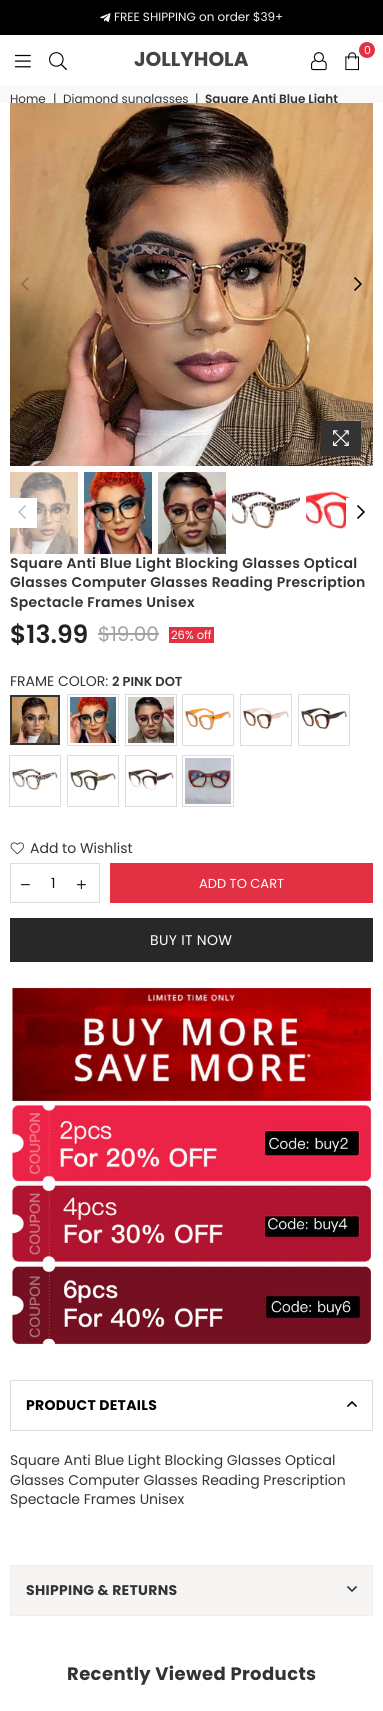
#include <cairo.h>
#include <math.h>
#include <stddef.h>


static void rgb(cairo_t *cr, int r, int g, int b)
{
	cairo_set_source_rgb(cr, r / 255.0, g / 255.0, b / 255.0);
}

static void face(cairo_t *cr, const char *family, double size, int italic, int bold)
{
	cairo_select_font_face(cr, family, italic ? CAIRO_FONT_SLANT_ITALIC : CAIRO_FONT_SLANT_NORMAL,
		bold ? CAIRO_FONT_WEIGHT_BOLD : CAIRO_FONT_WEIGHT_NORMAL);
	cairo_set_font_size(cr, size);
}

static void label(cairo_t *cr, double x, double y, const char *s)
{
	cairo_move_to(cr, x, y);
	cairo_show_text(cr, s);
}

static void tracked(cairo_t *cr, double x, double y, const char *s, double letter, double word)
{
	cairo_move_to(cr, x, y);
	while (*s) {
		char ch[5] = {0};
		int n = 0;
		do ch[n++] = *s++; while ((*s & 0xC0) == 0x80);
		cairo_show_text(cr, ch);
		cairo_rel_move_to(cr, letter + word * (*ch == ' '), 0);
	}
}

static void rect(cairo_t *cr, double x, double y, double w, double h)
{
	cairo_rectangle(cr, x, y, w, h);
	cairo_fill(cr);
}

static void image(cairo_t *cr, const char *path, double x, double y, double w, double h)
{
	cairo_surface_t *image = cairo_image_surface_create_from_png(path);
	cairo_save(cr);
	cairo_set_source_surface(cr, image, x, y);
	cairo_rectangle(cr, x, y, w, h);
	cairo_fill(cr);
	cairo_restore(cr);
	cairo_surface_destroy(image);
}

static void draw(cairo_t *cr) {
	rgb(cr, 255, 255, 255);
	cairo_paint(cr);
	rgb(cr, 0, 0, 0);
	rect(cr, 0, 0, 383, 35);
	image(cr, "image0.png", 100, 13, 11, 9);
	face(cr, "Poppins", 12, 0, 0);
	rgb(cr, 245, 245, 245);
	label(cr, 114, 21, "FREE SHIPPING on order $39+");
	rgb(cr, 227, 49, 68);
	cairo_new_path(cr);
	cairo_arc(cr, 367, 50, 8, 0, 2 * M_PI);
	cairo_fill(cr);
	face(cr, "Poppins", 11, 0, 0);
	rgb(cr, 255, 255, 255);
	label(cr, 364, 54, "0");
	image(cr, "image1.png", 345, 52, 14, 19);
	image(cr, "image2.png", 311, 52, 16, 19);
	image(cr, "image3.png", 15, 54, 16, 14);
	image(cr, "image4.png", 49, 52, 18, 19);
	face(cr, "Poppins", 20, 0, 1);
	rgb(cr, 68, 68, 68);
	label(cr, 134, 66, "JOLLYHOLA");
	rgb(cr, 249, 249, 249);
	rect(cr, 0, 85, 383, 18);
	face(cr, "Poppins", 12, 0, 0);
	rgb(cr, 51, 51, 51);
	label(cr, 10, 103, "Home");
	label(cr, 53, 103, "|");
	label(cr, 63, 103, "Diamond sunglasses");
	label(cr, 195, 103, "|");
	face(cr, "Poppins SemiBold", 12, 0, 0);
	label(cr, 205, 103, "Square Anti Blue Light");
	image(cr, "image5.png", 10, 103, 363, 363);
	image(cr, "image6.png", 21, 277, 8, 14);
	image(cr, "image7.png", 354, 277, 8, 14);
	rect(cr, 321, 421, 40, 35);
	image(cr, "image8.png", 333, 430, 16, 16);
	image(cr, "image9.png", 10, 472, 68, 82);
	image(cr, "image10.png", 84, 472, 68, 82);
	image(cr, "image11.png", 158, 472, 68, 82);
	image(cr, "image12.png", 232, 491, 68, 38);
	image(cr, "image13.png", 306, 491, 68, 40);
	rgb(cr, 255, 255, 255);
	rect(cr, 10, 498, 27, 30);
	image(cr, "image14.png", 18, 505, 8, 14);
	rect(cr, 346, 498, 28, 29);
	image(cr, "image15.png", 357, 505, 8, 14);
	face(cr, "Poppins SemiBold", 14, 0, 0);
	rgb(cr, 51, 51, 51);
	tracked(cr, 10, 568, "Square Anti Blue Light Blocking Glasses Optical", 0.3, 0);
	tracked(cr, 10, 587, "Glasses Computer Glasses Reading Prescription", 0.3, 0);
	tracked(cr, 10, 607, "Spectacle Frames Unisex", 0.3, 0);
	face(cr, "Poppins SemiBold", 25, 0, 0);
	rgb(cr, 34, 34, 34);
	label(cr, 10, 643, "$13.99");
	face(cr, "Poppins", 20, 0, 0);
	rgb(cr, 163, 163, 163);
	label(cr, 98, 641, "$19.00");
	rect(cr, 98, 633, 61, 2);
	rgb(cr, 227, 49, 68);
	rect(cr, 169, 627, 45, 16);
	face(cr, "Poppins", 11.5, 0, 0);
	rgb(cr, 255, 255, 255);
	label(cr, 171, 639, "26% off");
	face(cr, "Poppins", 14, 0, 0);
	rgb(cr, 51, 51, 51);
	label(cr, 10, 686, "FRAME COLOR:");
	face(cr, "Poppins SemiBold", 13, 0, 0);
	label(cr, 112, 686, "2 PINK DOT");
	image(cr, "image16.png", 12, 697, 46, 46);
	cairo_rectangle(cr, 11, 696, 48, 48);
	cairo_stroke(cr);
	cairo_rectangle(cr, 67.5, 694.5, 51, 51);
	rgb(cr, 221, 221, 221);
	cairo_set_line_width(cr, 1);
	cairo_stroke(cr);
	image(cr, "image17.png", 70, 697, 46, 46);
	cairo_rectangle(cr, 125.5, 694.5, 51, 51);
	cairo_stroke(cr);
	image(cr, "image18.png", 128, 697, 46, 46);
	cairo_rectangle(cr, 182.5, 694.5, 51, 51);
	cairo_stroke(cr);
	image(cr, "image19.png", 185, 697, 46, 46);
	cairo_rectangle(cr, 240.5, 694.5, 51, 51);
	cairo_stroke(cr);
	image(cr, "image20.png", 243, 697, 46, 46);
	cairo_rectangle(cr, 298.5, 694.5, 51, 51);
	cairo_stroke(cr);
	image(cr, "image21.png", 301, 697, 46, 46);
	cairo_rectangle(cr, 9.5, 755.5, 51, 51);
	cairo_stroke(cr);
	image(cr, "image22.png", 12, 758, 46, 46);
	cairo_rectangle(cr, 67.5, 755.5, 51, 51);
	cairo_stroke(cr);
	image(cr, "image23.png", 70, 758, 46, 46);
	cairo_rectangle(cr, 125.5, 755.5, 51, 51);
	cairo_stroke(cr);
	image(cr, "image24.png", 128, 758, 46, 46);
	cairo_rectangle(cr, 182.5, 755.5, 51, 51);
	cairo_stroke(cr);
	image(cr, "image25.png", 185, 758, 46, 46);
	image(cr, "image26.png", 10, 842, 14, 13);
	face(cr, "Poppins", 14, 0, 0);
	rgb(cr, 51, 51, 51);
	label(cr, 30, 853, "Add to Wishlist");
	cairo_rectangle(cr, 10.5, 863.5, 89, 39);
	rgb(cr, 221, 221, 221);
	cairo_stroke(cr);
	image(cr, "image27.png", 21, 884, 9, 2);
	rgb(cr, 17, 17, 17);
	label(cr, 51, 888, "1");
	image(cr, "image28.png", 77, 880, 9, 9);
	rgb(cr, 227, 49, 68);
	rect(cr, 110, 863, 263, 40);
	face(cr, "Poppins", 13, 0, 0);
	rgb(cr, 255, 255, 255);
	label(cr, 199, 888, "ADD TO CART");
	rgb(cr, 40, 40, 40);
	rect(cr, 10, 918, 363, 44);
	face(cr, "Poppins", 14, 0, 0);
	rgb(cr, 255, 255, 255);
	tracked(cr, 150, 945, "BUY IT NOW", 0.3, 0);
	image(cr, "image29.png", 10, 987, 363, 360);
	cairo_rectangle(cr, 10.5, 1380.5, 362, 50);
	rgb(cr, 221, 221, 221);
	cairo_stroke(cr);
	face(cr, "Poppins", 14, 0, 1);
	rgb(cr, 0, 0, 0);
	tracked(cr, 26, 1410, "PRODUCT DETAILS", 0.3, 0);
	image(cr, "image30.png", 347, 1401, 10, 6);
	face(cr, "Poppins", 14, 0, 0);
	rgb(cr, 51, 51, 51);
	label(cr, 10, 1465, "Square Anti Blue Light Blocking Glasses Optical");
	label(cr, 10, 1485, "Glasses Computer Glasses Reading Prescription");
	label(cr, 10, 1504, "Spectacle Frames Unisex");
	rgb(cr, 247, 245, 244);
	cairo_rectangle(cr, 10.5, 1565.5, 362, 50);
	cairo_fill_preserve(cr);
	rgb(cr, 238, 238, 238);
	cairo_stroke(cr);
	face(cr, "Poppins", 14, 0, 1);
	rgb(cr, 51, 51, 51);
	tracked(cr, 26, 1595, "SHIPPING & RETURNS", 0.3, 0);
	image(cr, "image31.png", 347, 1586, 10, 6);
	face(cr, "Poppins", 18, 0, 1);
	tracked(cr, 67, 1680, "Recently Viewed Products", 0.4, 0);
}

int main(void) {
	cairo_surface_t *surface = cairo_image_surface_create(CAIRO_FORMAT_RGB24, 383, 1711);
	cairo_t *cr = cairo_create(surface);
	cairo_font_options_t *options = cairo_font_options_create();
	cairo_font_options_set_hint_metrics(options, CAIRO_HINT_METRICS_OFF);
	cairo_font_options_set_hint_style(options, CAIRO_HINT_STYLE_NONE);
	cairo_set_font_options(cr, options);
	cairo_set_miter_limit(cr, 4);
	draw(cr);
	cairo_surface_write_to_png(surface, "render.png");
	cairo_font_options_destroy(options);
	cairo_destroy(cr);
	cairo_surface_destroy(surface);
	return 0;
}
